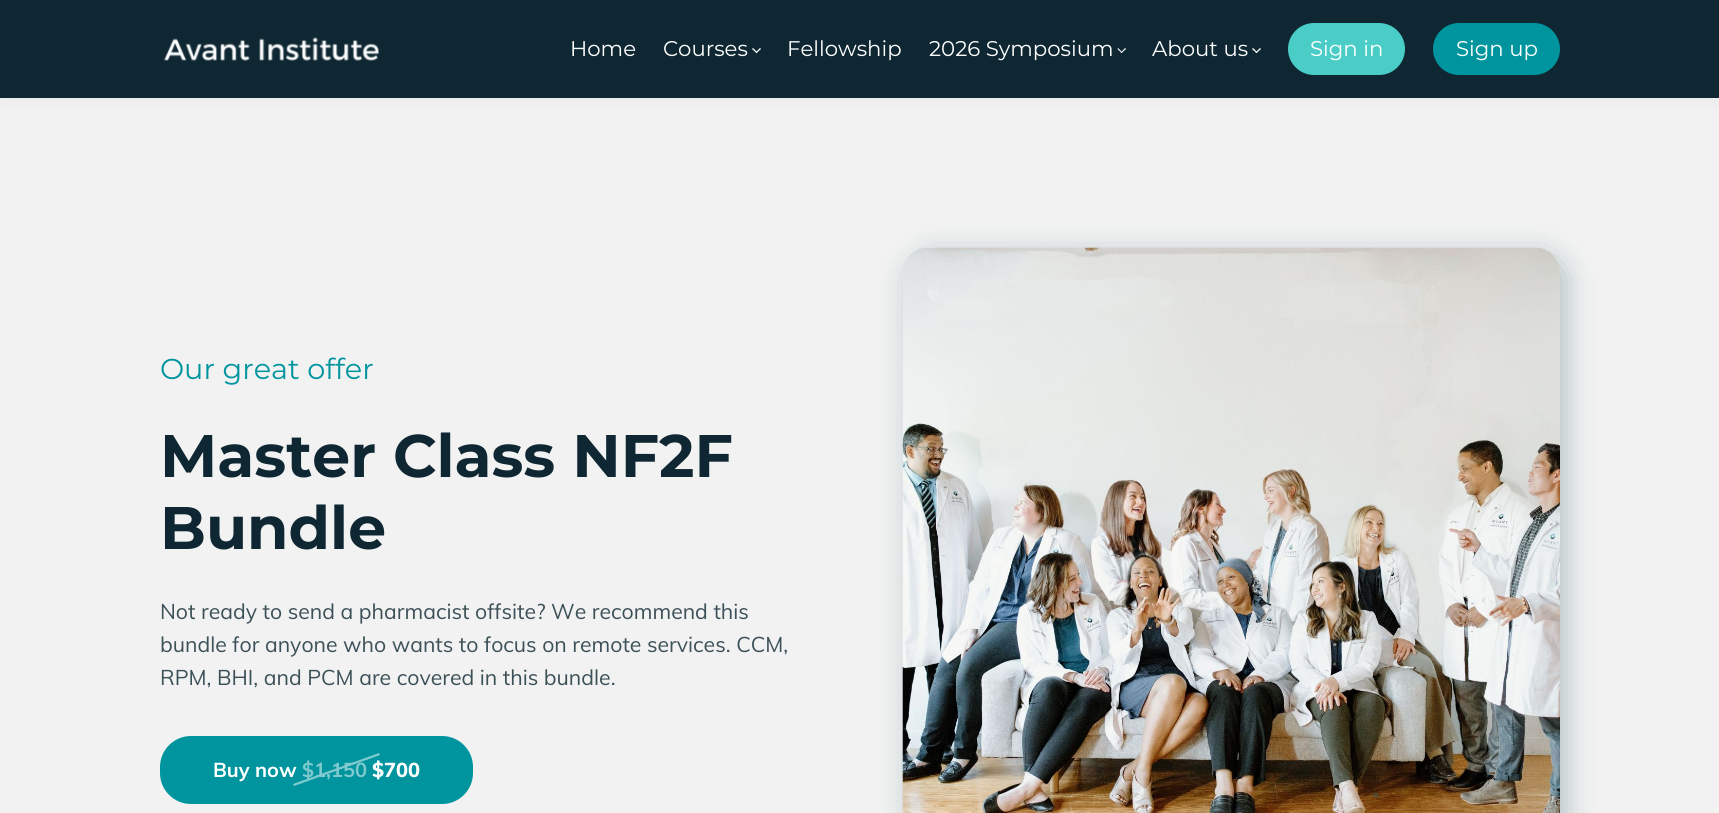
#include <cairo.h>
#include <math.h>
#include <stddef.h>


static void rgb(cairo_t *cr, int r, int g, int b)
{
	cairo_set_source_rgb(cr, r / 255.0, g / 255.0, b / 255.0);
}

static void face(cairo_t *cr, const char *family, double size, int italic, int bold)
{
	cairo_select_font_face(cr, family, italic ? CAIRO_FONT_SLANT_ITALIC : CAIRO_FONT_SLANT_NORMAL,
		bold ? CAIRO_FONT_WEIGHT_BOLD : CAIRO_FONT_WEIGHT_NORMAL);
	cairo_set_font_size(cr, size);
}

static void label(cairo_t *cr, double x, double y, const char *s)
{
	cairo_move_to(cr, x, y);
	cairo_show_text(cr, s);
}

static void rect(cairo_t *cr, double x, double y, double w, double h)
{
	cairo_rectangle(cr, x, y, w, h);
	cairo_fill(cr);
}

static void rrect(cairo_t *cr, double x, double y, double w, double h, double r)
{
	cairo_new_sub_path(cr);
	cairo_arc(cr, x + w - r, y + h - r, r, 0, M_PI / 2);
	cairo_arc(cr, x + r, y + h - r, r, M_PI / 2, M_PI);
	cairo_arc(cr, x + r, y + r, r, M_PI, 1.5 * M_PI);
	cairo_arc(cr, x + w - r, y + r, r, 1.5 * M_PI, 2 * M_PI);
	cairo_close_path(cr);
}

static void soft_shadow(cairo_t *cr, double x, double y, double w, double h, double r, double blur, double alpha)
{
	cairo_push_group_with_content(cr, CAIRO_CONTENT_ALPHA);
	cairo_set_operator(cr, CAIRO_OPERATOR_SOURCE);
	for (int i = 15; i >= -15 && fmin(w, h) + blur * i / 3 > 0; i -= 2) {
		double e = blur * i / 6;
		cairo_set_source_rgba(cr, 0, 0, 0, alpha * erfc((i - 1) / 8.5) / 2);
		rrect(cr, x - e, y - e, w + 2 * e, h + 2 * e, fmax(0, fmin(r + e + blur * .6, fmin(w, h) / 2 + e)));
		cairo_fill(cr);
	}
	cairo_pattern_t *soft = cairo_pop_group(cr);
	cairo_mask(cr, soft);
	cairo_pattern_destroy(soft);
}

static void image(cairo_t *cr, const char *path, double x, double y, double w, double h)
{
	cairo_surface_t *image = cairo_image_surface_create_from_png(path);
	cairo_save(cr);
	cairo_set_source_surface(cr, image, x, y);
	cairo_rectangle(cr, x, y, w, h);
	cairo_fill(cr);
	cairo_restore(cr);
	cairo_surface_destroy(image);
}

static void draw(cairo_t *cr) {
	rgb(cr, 242, 242, 242);
	cairo_paint(cr);
	rgb(cr, 0, 0, 0);
	soft_shadow(cr, 0, 0, 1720, 98, 0, 9.5, 0.05);
	rgb(cr, 14, 39, 50);
	rect(cr, 0, 0, 1719, 98);
	image(cr, "image0.png", 164, 37, 215, 24);
	face(cr, "Montserrat", 21.25, 0, 0);
	rgb(cr, 255, 255, 255);
	label(cr, 570, 56, "Home");
	label(cr, 663, 56, "Courses");
	cairo_new_path(cr);
	cairo_move_to(cr, 761, 49);
	cairo_line_to(cr, 756.5, 53);
	cairo_line_to(cr, 755.5, 52.5);
	cairo_line_to(cr, 760, 48);
	cairo_close_path(cr);
	cairo_fill(cr);
	cairo_new_path(cr);
	cairo_move_to(cr, 757.5, 52.5);
	cairo_line_to(cr, 756.5, 53);
	cairo_line_to(cr, 752, 49);
	cairo_line_to(cr, 753, 48);
	cairo_close_path(cr);
	cairo_fill(cr);
	label(cr, 787, 56, "Fellowship");
	label(cr, 929, 56, "2026 Symposium");
	cairo_new_path(cr);
	cairo_move_to(cr, 1126, 49);
	cairo_line_to(cr, 1121.5, 53);
	cairo_line_to(cr, 1121, 52.5);
	cairo_line_to(cr, 1125, 48);
	cairo_close_path(cr);
	cairo_fill(cr);
	cairo_new_path(cr);
	cairo_move_to(cr, 1122.5, 52.5);
	cairo_line_to(cr, 1121.5, 53);
	cairo_line_to(cr, 1117.5, 49);
	cairo_line_to(cr, 1118, 48);
	cairo_close_path(cr);
	cairo_fill(cr);
	label(cr, 1152, 56, "About us");
	cairo_new_path(cr);
	cairo_move_to(cr, 1261, 49);
	cairo_line_to(cr, 1256.5, 53);
	cairo_line_to(cr, 1255.5, 52.5);
	cairo_line_to(cr, 1260, 48);
	cairo_close_path(cr);
	cairo_fill(cr);
	cairo_new_path(cr);
	cairo_move_to(cr, 1257.5, 52.5);
	cairo_line_to(cr, 1256.5, 53);
	cairo_line_to(cr, 1252, 49);
	cairo_line_to(cr, 1253, 48);
	cairo_close_path(cr);
	cairo_fill(cr);
	rgb(cr, 74, 204, 199);
	rrect(cr, 1288, 23, 117, 52, 26);
	cairo_fill(cr);
	rgb(cr, 255, 255, 255);
	label(cr, 1310, 56, "Sign in");
	rgb(cr, 0, 149, 158);
	rrect(cr, 1433, 23, 127, 52, 26);
	cairo_fill(cr);
	rgb(cr, 255, 255, 255);
	label(cr, 1456, 56, "Sign up");
	face(cr, "Montserrat", 28.75, 0, 0);
	rgb(cr, 0, 149, 158);
	label(cr, 160, 379, "Our great offer");
	face(cr, "Montserrat", 60, 0, 1);
	rgb(cr, 14, 39, 50);
	label(cr, 160, 477, "Master Class NF2F");
	label(cr, 160, 549, "Bundle");
	face(cr, "Muli", 21.25, 0, 0);
	rgb(cr, 60, 80, 88);
	label(cr, 160, 619, "Not ready to send a pharmacist offsite? We recommend this");
	label(cr, 160, 652, "bundle for anyone who wants to focus on remote services. CCM,");
	label(cr, 160, 685, "RPM, BHI, and PCM are covered in this bundle.");
	rgb(cr, 0, 149, 158);
	rrect(cr, 160, 736, 313, 68, 31);
	cairo_fill(cr);
	face(cr, "Muli", 20, 0, 1);
	rgb(cr, 255, 255, 255);
	label(cr, 213, 777, "Buy now");
	face(cr, "Muli ExtraBold", 20, 0, 0);
	label(cr, 372, 777, "$700");
	rgb(cr, 128, 202, 207);
	cairo_new_path(cr);
	cairo_move_to(cr, 293, 784);
	cairo_line_to(cr, 379, 753);
	cairo_line_to(cr, 380, 755);
	cairo_line_to(cr, 294, 786);
	cairo_close_path(cr);
	cairo_fill(cr);
	face(cr, "Muli", 20, 0, 1);
	label(cr, 302, 777, "$1,150");
	rgb(cr, 30, 77, 78);
	soft_shadow(cr, 909, 254, 657, 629, 25, 15, 0.3);
	image(cr, "image1.png", 902, 247, 658, 566);
}

int main(void) {
	cairo_surface_t *surface = cairo_image_surface_create(CAIRO_FORMAT_RGB24, 1719, 813);
	cairo_t *cr = cairo_create(surface);
	cairo_font_options_t *options = cairo_font_options_create();
	cairo_font_options_set_hint_metrics(options, CAIRO_HINT_METRICS_OFF);
	cairo_font_options_set_hint_style(options, CAIRO_HINT_STYLE_NONE);
	cairo_set_font_options(cr, options);
	cairo_set_miter_limit(cr, 4);
	draw(cr);
	cairo_surface_write_to_png(surface, "render.png");
	cairo_font_options_destroy(options);
	cairo_destroy(cr);
	cairo_surface_destroy(surface);
	return 0;
}
